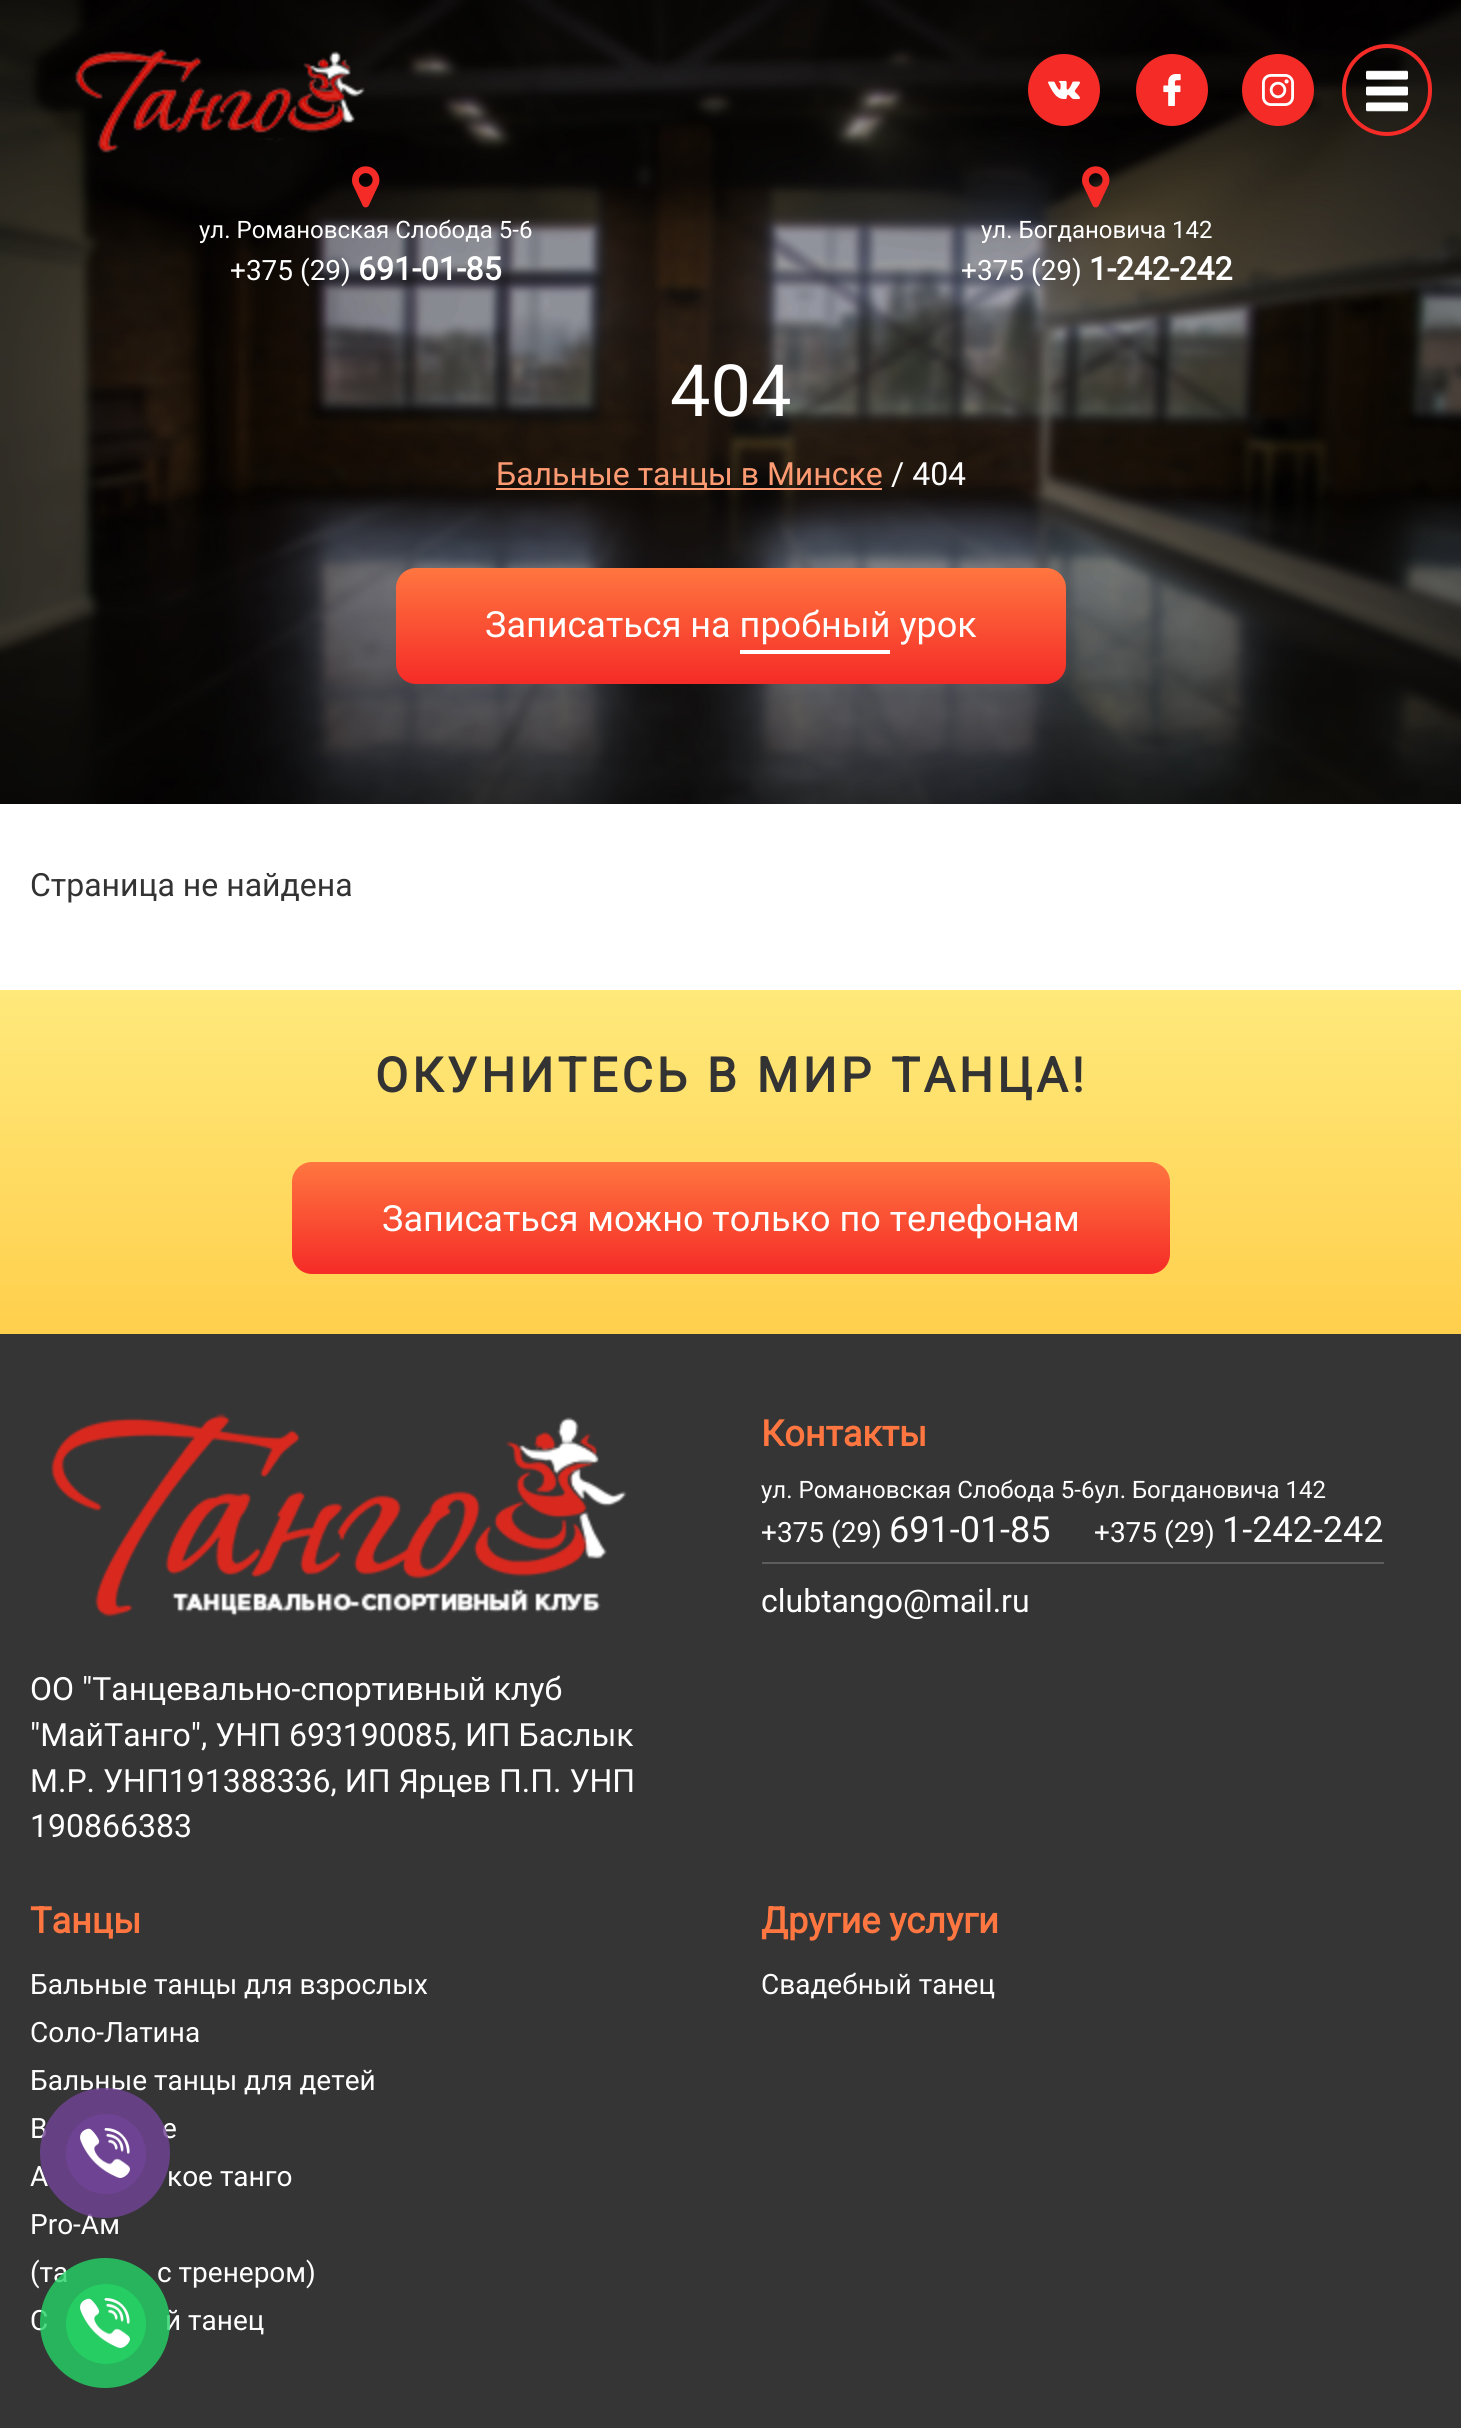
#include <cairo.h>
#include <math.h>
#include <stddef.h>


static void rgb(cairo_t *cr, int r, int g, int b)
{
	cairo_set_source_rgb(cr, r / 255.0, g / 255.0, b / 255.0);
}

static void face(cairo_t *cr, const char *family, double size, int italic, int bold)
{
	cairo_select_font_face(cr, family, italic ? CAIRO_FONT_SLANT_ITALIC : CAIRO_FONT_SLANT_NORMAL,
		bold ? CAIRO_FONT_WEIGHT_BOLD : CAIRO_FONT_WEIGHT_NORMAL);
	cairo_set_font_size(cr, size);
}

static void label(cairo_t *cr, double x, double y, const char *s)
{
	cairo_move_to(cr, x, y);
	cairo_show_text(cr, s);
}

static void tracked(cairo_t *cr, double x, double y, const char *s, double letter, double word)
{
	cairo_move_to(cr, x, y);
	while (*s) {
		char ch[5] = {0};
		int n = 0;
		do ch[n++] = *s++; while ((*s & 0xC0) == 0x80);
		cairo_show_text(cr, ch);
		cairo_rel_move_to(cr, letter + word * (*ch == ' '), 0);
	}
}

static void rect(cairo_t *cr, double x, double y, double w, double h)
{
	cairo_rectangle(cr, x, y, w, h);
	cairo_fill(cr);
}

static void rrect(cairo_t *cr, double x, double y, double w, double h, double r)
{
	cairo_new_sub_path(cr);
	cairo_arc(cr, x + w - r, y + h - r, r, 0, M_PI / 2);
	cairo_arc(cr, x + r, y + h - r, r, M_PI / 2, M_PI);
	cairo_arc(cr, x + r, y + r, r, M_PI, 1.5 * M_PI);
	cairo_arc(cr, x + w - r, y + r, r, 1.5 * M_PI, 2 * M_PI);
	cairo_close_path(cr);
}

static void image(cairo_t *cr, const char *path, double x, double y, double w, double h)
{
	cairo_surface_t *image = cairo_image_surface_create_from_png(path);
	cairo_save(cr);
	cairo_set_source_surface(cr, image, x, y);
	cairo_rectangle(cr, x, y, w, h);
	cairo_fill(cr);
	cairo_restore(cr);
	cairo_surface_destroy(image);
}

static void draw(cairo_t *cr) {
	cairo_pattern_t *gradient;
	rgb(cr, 255, 255, 255);
	cairo_paint(cr);
	image(cr, "image0.png", 0, 0, 1461, 804);
	image(cr, "image1.png", 75, 49, 290, 104);
	rgb(cr, 245, 43, 39);
	cairo_arc(cr, 1064, 90, 36, 0, 2 * M_PI);
	cairo_fill(cr);
	image(cr, "image2.png", 1048, 80, 32, 20);
	cairo_arc(cr, 1172, 90, 36, 0, 2 * M_PI);
	cairo_fill(cr);
	image(cr, "image3.png", 1163, 74, 18, 32);
	cairo_arc(cr, 1278, 90, 36, 0, 2 * M_PI);
	cairo_fill(cr);
	image(cr, "image4.png", 1262, 74, 32, 32);
	rrect(cr, 1344, 46, 86, 88, 43);
	cairo_set_line_width(cr, 4);
	cairo_stroke(cr);
	image(cr, "image5.png", 1366, 70, 42, 42);
	image(cr, "image6.png", 352, 166, 28, 42);
	face(cr, "Roboto", 24, 0, 0);
	rgb(cr, 255, 255, 255);
	label(cr, 199, 238, "ул. Романовская Слобода 5-6");
	face(cr, "Roboto", 28, 0, 0);
	label(cr, 230, 280, "+375 (29)");
	face(cr, "Roboto", 32, 0, 1);
	label(cr, 358, 280, "691-01-85");
	image(cr, "image7.png", 1082, 166, 28, 42);
	face(cr, "Roboto", 24, 0, 0);
	label(cr, 981, 238, "ул. Богдановича 142");
	face(cr, "Roboto", 28, 0, 0);
	label(cr, 961, 280, "+375 (29)");
	face(cr, "Roboto", 32, 0, 1);
	label(cr, 1089, 280, "1-242-242");
	face(cr, "Roboto", 72, 0, 0);
	label(cr, 670, 416, "404");
	rgb(cr, 255, 155, 115);
	rect(cr, 496, 488, 386, 2);
	face(cr, "Roboto", 32, 0, 0);
	label(cr, 496, 485, "Бальные танцы в Минске");
	rgb(cr, 255, 255, 255);
	label(cr, 891, 485, "/ 404");
	gradient = cairo_pattern_create_linear(396, 568, 396, 684);
	cairo_pattern_add_color_stop_rgba(gradient, 0, 1, 0.463, 0.251, 1);
	cairo_pattern_add_color_stop_rgba(gradient, 1, 0.961, 0.169, 0.153, 1);
	cairo_set_source(cr, gradient);
	cairo_pattern_destroy(gradient);
	rrect(cr, 396, 568, 670, 116, 20);
	cairo_fill(cr);
	face(cr, "Roboto", 36, 0, 0);
	rgb(cr, 255, 255, 255);
	label(cr, 485, 637, "Записаться на пробный урок");
	rect(cr, 740, 650, 150, 4);
	face(cr, "Roboto", 32, 0, 0);
	rgb(cr, 51, 51, 51);
	label(cr, 30, 896, "Страница не найдена");
	gradient = cairo_pattern_create_linear(0, 990, 0, 1334);
	cairo_pattern_add_color_stop_rgba(gradient, 0, 1, 0.914, 0.482, 1);
	cairo_pattern_add_color_stop_rgba(gradient, 1, 1, 0.812, 0.298, 1);
	cairo_set_source(cr, gradient);
	cairo_pattern_destroy(gradient);
	rect(cr, 0, 990, 1461, 344);
	face(cr, "Roboto", 48, 0, 1);
	rgb(cr, 51, 51, 51);
	tracked(cr, 375, 1092, "ОКУНИТЕСЬ В МИР ТАНЦА!", 4, 0);
	gradient = cairo_pattern_create_linear(292, 1162, 292, 1274);
	cairo_pattern_add_color_stop_rgba(gradient, 0, 1, 0.463, 0.251, 1);
	cairo_pattern_add_color_stop_rgba(gradient, 1, 0.961, 0.169, 0.153, 1);
	cairo_set_source(cr, gradient);
	cairo_pattern_destroy(gradient);
	rrect(cr, 292, 1162, 878, 112, 20);
	cairo_fill(cr);
	face(cr, "Roboto", 36, 0, 0);
	rgb(cr, 255, 255, 255);
	label(cr, 382, 1231, "Записаться можно только по телефонам");
	rgb(cr, 53, 53, 53);
	rect(cr, 0, 1334, 1461, 1094);
	face(cr, "Roboto", 36, 0, 1);
	rgb(cr, 255, 118, 64);
	label(cr, 761, 1446, "Контакты");
	rgb(cr, 93, 93, 93);
	rect(cr, 762, 1562, 622, 2);
	face(cr, "Roboto", 24, 0, 0);
	rgb(cr, 255, 255, 255);
	label(cr, 761, 1498, "ул. Романовская Слобода 5-6ул. Богдановича 142");
	face(cr, "Roboto", 28, 0, 0);
	label(cr, 761, 1542, "+375 (29)");
	face(cr, "Roboto", 36, 0, 0);
	label(cr, 889, 1542, "691-01-85");
	face(cr, "Roboto", 28, 0, 0);
	label(cr, 1094, 1542, "+375 (29)");
	face(cr, "Roboto", 36, 0, 0);
	label(cr, 1222, 1542, "1-242-242");
	face(cr, "Roboto", 32, 0, 0);
	label(cr, 761, 1612, "clubtango@mail.ru");
	image(cr, "image8.png", 51, 1413, 576, 204);
	label(cr, 30, 1700, "ОО \"Танцевально-спортивный клуб");
	label(cr, 30, 1746, "\"МайТанго\", УНП 693190085, ИП Баслык");
	label(cr, 30, 1792, "М.Р. УНП191388336, ИП Ярцев П.П. УНП");
	label(cr, 30, 1837, "190866383");
	face(cr, "Roboto", 36, 0, 1);
	rgb(cr, 255, 118, 64);
	label(cr, 30, 1933, "Танцы");
	face(cr, "Roboto", 28, 0, 0);
	rgb(cr, 255, 255, 255);
	label(cr, 30, 1994, "Бальные танцы для взрослых");
	label(cr, 30, 2042, "Соло-Латина");
	label(cr, 30, 2090, "Бальные танцы для детей");
	label(cr, 30, 2138, "B");
	label(cr, 162, 2138, "e");
	label(cr, 30, 2186, "А");
	label(cr, 167, 2186, "кое танго");
	label(cr, 30, 2234, "Pro-Ам");
	label(cr, 30, 2282, "(та");
	label(cr, 157, 2282, "с тренером)");
	label(cr, 30, 2330, "С");
	label(cr, 165, 2330, "й танец");
	face(cr, "Roboto", 36, 0, 1);
	rgb(cr, 255, 118, 64);
	label(cr, 761, 1933, "Другие услуги");
	face(cr, "Roboto", 28, 0, 0);
	rgb(cr, 255, 255, 255);
	label(cr, 761, 1994, "Свадебный танец");
	cairo_set_source_rgba(cr, 0.443, 0.267, 0.592, 0.8);
	cairo_new_path(cr);
	cairo_arc(cr, 105, 2153, 65, 0, 2 * M_PI);
	cairo_fill(cr);
	cairo_arc(cr, 106, 2154, 40, 0, 2 * M_PI);
	cairo_fill(cr);
	image(cr, "image9.png", 80, 2128, 50, 50);
	cairo_set_source_rgba(cr, 0.145, 0.827, 0.4, 0.8);
	cairo_arc(cr, 105, 2323, 65, 0, 2 * M_PI);
	cairo_fill(cr);
	cairo_arc(cr, 106, 2324, 40, 0, 2 * M_PI);
	cairo_fill(cr);
	image(cr, "image10.png", 80, 2298, 50, 50);
}

int main(void) {
	cairo_surface_t *surface = cairo_image_surface_create(CAIRO_FORMAT_RGB24, 1461, 2428);
	cairo_t *cr = cairo_create(surface);
	cairo_font_options_t *options = cairo_font_options_create();
	cairo_font_options_set_hint_metrics(options, CAIRO_HINT_METRICS_OFF);
	cairo_font_options_set_hint_style(options, CAIRO_HINT_STYLE_NONE);
	cairo_set_font_options(cr, options);
	cairo_set_miter_limit(cr, 4);
	draw(cr);
	cairo_surface_write_to_png(surface, "render.png");
	cairo_font_options_destroy(options);
	cairo_destroy(cr);
	cairo_surface_destroy(surface);
	return 0;
}
